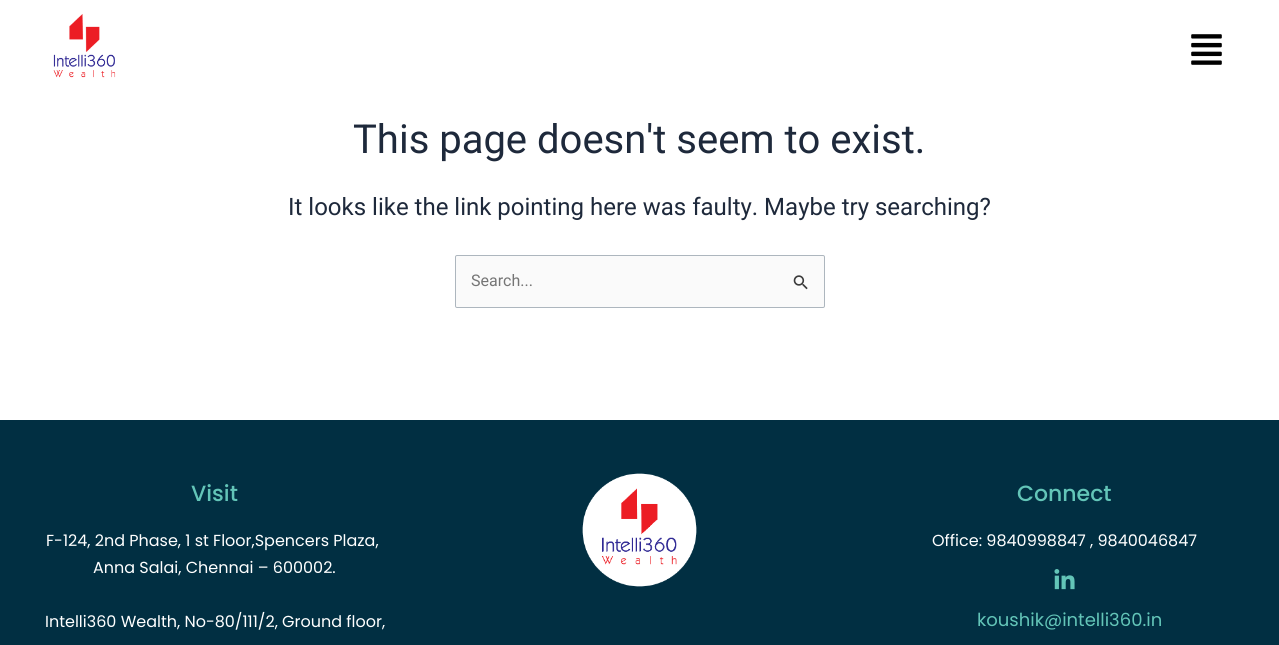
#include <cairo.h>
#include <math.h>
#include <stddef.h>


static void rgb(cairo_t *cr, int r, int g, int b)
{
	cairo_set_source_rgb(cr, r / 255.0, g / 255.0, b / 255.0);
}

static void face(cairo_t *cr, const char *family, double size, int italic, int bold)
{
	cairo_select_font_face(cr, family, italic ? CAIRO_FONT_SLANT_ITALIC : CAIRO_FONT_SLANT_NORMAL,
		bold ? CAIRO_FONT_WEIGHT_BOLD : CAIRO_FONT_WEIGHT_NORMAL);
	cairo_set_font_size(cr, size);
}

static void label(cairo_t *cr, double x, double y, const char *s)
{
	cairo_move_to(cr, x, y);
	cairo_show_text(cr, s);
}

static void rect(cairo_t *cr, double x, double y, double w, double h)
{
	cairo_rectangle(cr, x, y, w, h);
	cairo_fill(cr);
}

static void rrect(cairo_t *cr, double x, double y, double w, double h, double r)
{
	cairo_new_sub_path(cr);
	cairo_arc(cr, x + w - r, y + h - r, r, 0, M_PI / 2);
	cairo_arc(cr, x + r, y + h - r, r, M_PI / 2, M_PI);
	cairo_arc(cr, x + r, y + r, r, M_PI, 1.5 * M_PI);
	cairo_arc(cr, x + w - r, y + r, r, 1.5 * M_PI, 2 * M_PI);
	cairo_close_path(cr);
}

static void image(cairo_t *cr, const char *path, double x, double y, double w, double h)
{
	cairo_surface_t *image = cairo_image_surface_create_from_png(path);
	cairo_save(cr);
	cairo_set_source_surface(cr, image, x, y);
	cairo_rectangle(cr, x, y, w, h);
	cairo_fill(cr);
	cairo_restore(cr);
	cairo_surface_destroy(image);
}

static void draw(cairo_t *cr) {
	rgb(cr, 255, 255, 255);
	cairo_paint(cr);
	image(cr, "image0.png", 53, 14, 63, 64);
	image(cr, "image1.png", 1191, 34, 31, 31);
	face(cr, "Roboto", 40, 0, 0);
	rgb(cr, 30, 41, 59);
	label(cr, 353, 153, "This page doesn't seem to exist.");
	face(cr, "Roboto", 24, 0, 0);
	label(cr, 288, 215, "It looks like the link pointing here was faulty. Maybe try searching?");
	rgb(cr, 250, 250, 250);
	rrect(cr, 455.5, 255.5, 369, 52, 1.5);
	cairo_fill_preserve(cr);
	rgb(cr, 173, 182, 190);
	cairo_set_line_width(cr, 1);
	cairo_stroke(cr);
	face(cr, "Roboto", 16, 0, 0);
	rgb(cr, 117, 117, 117);
	label(cr, 471, 286, "Search...");
	image(cr, "image2.png", 793, 275, 15, 15);
	rgb(cr, 1, 47, 66);
	rect(cr, 0, 420, 1279, 225);
	face(cr, "Poppins Medium", 22, 0, 0);
	rgb(cr, 99, 197, 184);
	label(cr, 191, 501, "Visit");
	face(cr, "Poppins", 16, 0, 0);
	rgb(cr, 255, 255, 255);
	label(cr, 46, 546, "F-124, 2nd Phase, 1 st Floor,Spencers Plaza,");
	label(cr, 93, 573, "Anna Salai, Chennai – 600002.");
	label(cr, 45, 627, "Intelli360 Wealth, No-80/111/2, Ground floor,");
	image(cr, "image3.png", 582, 473, 115, 114);
	face(cr, "Poppins Medium", 22, 0, 0);
	rgb(cr, 99, 197, 184);
	label(cr, 1017, 501, "Connect");
	face(cr, "Poppins", 16, 0, 0);
	rgb(cr, 255, 255, 255);
	label(cr, 932, 546, "Office: 9840998847 , 9840046847");
	image(cr, "image4.png", 1054, 569, 21, 21);
	face(cr, "Poppins", 18, 0, 0);
	rgb(cr, 99, 197, 184);
	label(cr, 977, 626, "koushik@intelli360.in");
}

int main(void) {
	cairo_surface_t *surface = cairo_image_surface_create(CAIRO_FORMAT_RGB24, 1279, 645);
	cairo_t *cr = cairo_create(surface);
	cairo_font_options_t *options = cairo_font_options_create();
	cairo_font_options_set_hint_metrics(options, CAIRO_HINT_METRICS_OFF);
	cairo_font_options_set_hint_style(options, CAIRO_HINT_STYLE_NONE);
	cairo_set_font_options(cr, options);
	cairo_set_miter_limit(cr, 4);
	draw(cr);
	cairo_surface_write_to_png(surface, "render.png");
	cairo_font_options_destroy(options);
	cairo_destroy(cr);
	cairo_surface_destroy(surface);
	return 0;
}
